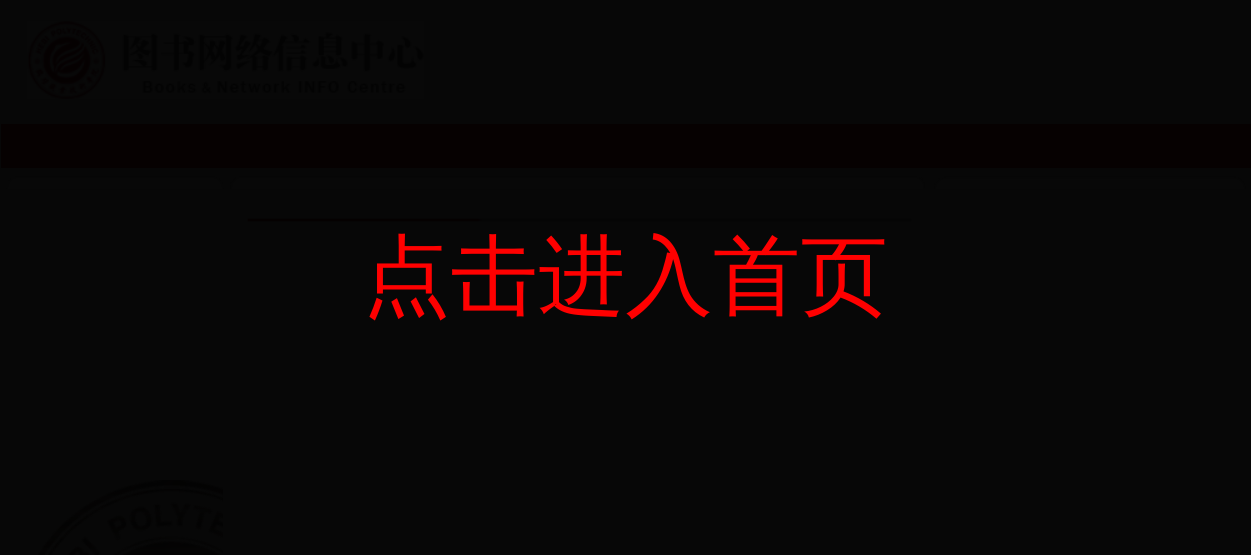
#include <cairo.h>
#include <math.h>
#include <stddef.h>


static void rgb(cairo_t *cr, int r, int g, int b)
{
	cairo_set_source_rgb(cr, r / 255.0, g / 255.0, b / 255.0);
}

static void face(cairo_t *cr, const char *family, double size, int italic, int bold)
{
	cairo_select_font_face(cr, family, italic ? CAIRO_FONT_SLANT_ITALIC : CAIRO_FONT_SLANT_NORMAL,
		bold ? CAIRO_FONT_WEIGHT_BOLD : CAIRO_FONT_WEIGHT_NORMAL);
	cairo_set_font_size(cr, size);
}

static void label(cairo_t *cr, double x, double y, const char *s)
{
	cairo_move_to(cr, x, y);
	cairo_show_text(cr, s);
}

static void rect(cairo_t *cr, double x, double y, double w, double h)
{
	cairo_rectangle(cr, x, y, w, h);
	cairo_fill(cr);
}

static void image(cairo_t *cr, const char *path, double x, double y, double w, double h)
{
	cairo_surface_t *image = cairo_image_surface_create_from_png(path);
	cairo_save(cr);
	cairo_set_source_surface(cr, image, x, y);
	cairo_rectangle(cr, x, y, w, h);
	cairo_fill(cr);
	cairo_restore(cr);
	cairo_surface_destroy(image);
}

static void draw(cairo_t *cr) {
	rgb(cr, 7, 7, 7);
	cairo_paint(cr);
	image(cr, "image0.png", 27, 21, 397, 78);
	rgb(cr, 6, 1, 1);
	rect(cr, 1, 124, 1250, 44);
	image(cr, "image1.png", 37, 479, 186, 76);
	image(cr, "image2.png", 6, 176, 218, 13);
	image(cr, "image3.png", 230, 176, 695, 13);
	image(cr, "image4.png", 247, 218, 665, 4);
	image(cr, "image5.png", 933, 176, 314, 13);
	face(cr, "WenQuanYi Zen Hei Medium", 87.5, 0, 0);
	rgb(cr, 255, 0, 0);
	label(cr, 363, 306, "点击进入首页");
}

int main(void) {
	cairo_surface_t *surface = cairo_image_surface_create(CAIRO_FORMAT_RGB24, 1251, 555);
	cairo_t *cr = cairo_create(surface);
	cairo_font_options_t *options = cairo_font_options_create();
	cairo_font_options_set_hint_metrics(options, CAIRO_HINT_METRICS_OFF);
	cairo_font_options_set_hint_style(options, CAIRO_HINT_STYLE_NONE);
	cairo_set_font_options(cr, options);
	cairo_set_miter_limit(cr, 4);
	draw(cr);
	cairo_surface_write_to_png(surface, "render.png");
	cairo_font_options_destroy(options);
	cairo_destroy(cr);
	cairo_surface_destroy(surface);
	return 0;
}
